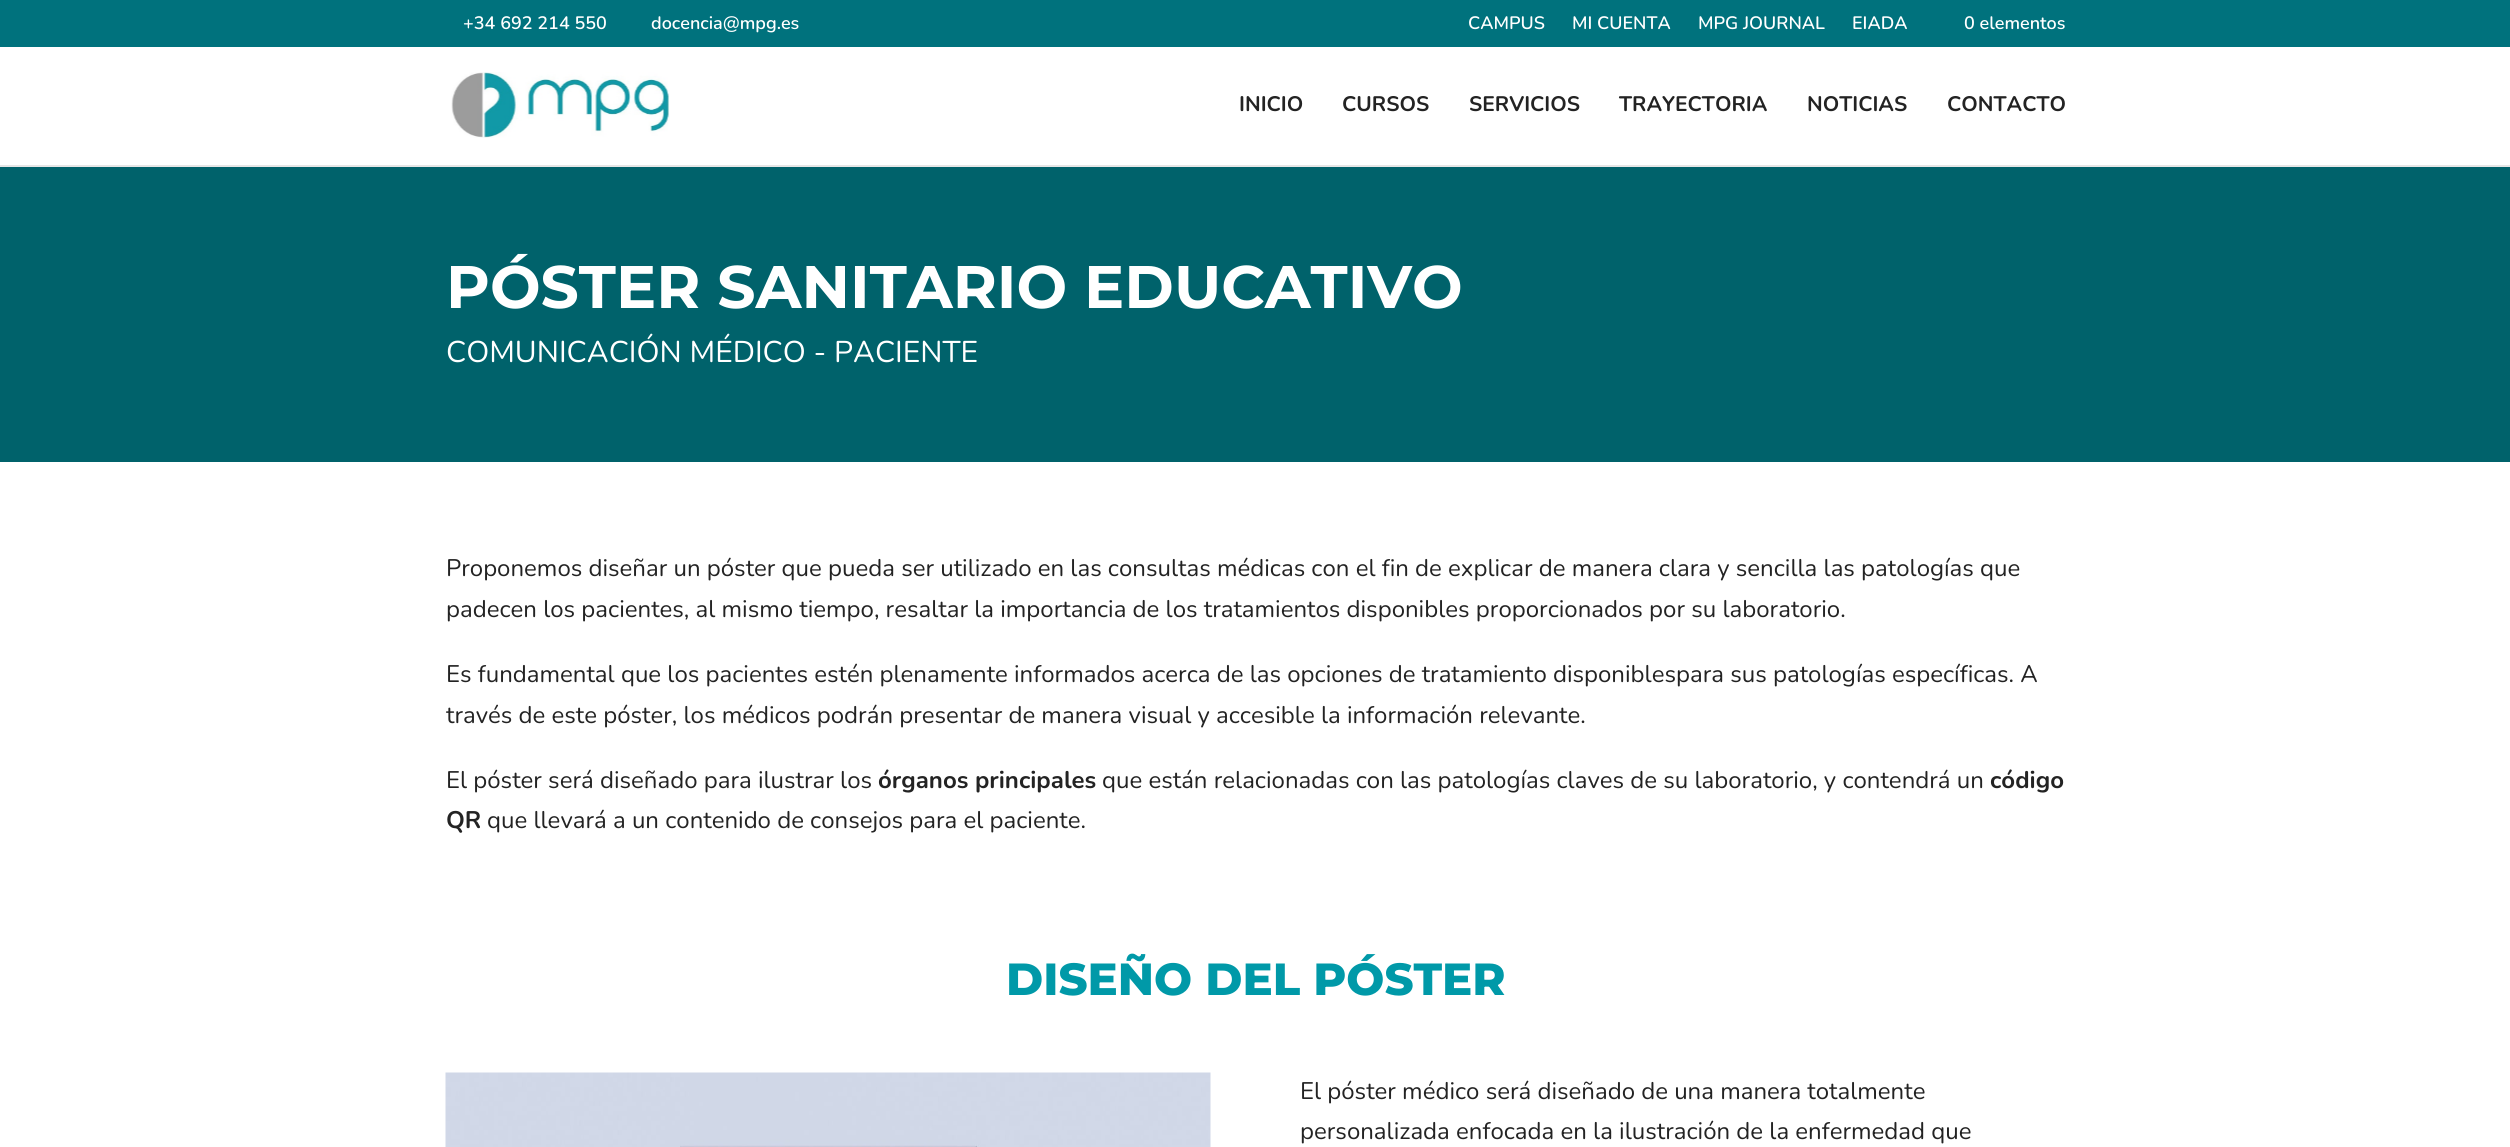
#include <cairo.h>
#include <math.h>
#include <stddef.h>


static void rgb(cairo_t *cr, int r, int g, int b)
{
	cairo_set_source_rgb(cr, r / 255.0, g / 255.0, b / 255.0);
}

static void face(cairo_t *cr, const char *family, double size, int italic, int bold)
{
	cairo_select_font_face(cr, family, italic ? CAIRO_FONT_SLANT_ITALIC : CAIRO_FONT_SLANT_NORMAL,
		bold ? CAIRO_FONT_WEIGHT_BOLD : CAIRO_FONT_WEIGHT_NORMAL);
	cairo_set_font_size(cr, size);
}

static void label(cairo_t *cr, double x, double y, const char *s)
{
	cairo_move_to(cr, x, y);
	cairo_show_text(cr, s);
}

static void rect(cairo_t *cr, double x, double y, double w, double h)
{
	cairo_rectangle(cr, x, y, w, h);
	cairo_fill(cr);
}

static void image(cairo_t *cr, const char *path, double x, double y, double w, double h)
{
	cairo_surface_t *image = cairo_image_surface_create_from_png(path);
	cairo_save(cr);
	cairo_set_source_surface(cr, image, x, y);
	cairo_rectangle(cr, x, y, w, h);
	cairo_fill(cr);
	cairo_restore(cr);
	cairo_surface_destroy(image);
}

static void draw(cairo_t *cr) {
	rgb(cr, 255, 255, 255);
	cairo_paint(cr);
	rgb(cr, 0, 114, 125);
	rect(cr, 0, 0, 2510, 47);
	face(cr, "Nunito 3 ExtraLight", 18, 0, 0);
	rgb(cr, 255, 255, 255);
	label(cr, 463, 29, "+34 692 214 550");
	label(cr, 651, 29, "docencia@mpg.es");
	label(cr, 1468, 29, "CAMPUS");
	label(cr, 1572, 29, "MI CUENTA");
	label(cr, 1698, 29, "MPG JOURNAL");
	label(cr, 1852, 29, "EIADA");
	label(cr, 1964, 29, "0 elementos");
	rgb(cr, 230, 230, 230);
	rect(cr, 0, 165, 2510, 2);
	image(cr, "image0.png", 451, 72, 219, 66);
	face(cr, "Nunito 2 ExtraLight", 21, 0, 0);
	rgb(cr, 35, 35, 35);
	label(cr, 1239, 111, "INICIO");
	label(cr, 1342, 111, "CURSOS");
	label(cr, 1469, 111, "SERVICIOS");
	label(cr, 1619, 111, "TRAYECTORIA");
	label(cr, 1807, 111, "NOTICIAS");
	label(cr, 1947, 111, "CONTACTO");
	rgb(cr, 0, 98, 107);
	rect(cr, 0, 167, 2510, 295);
	face(cr, "Montserrat Thin", 60, 0, 0);
	rgb(cr, 255, 255, 255);
	label(cr, 446, 308, "PÓSTER SANITARIO EDUCATIVO");
	face(cr, "Nunito ExtraLight", 30, 0, 0);
	label(cr, 446, 362, "COMUNICACIÓN MÉDICO - PACIENTE");
	face(cr, "Nunito ExtraLight", 24, 0, 0);
	rgb(cr, 35, 35, 35);
	label(cr, 446, 576, "Proponemos diseñar un póster que pueda ser utilizado en las consultas médicas con el fin de explicar de manera clara y sencilla las patologías que");
	label(cr, 446, 617, "padecen los pacientes, al mismo tiempo, resaltar la importancia de los tratamientos disponibles proporcionados por su laboratorio.");
	label(cr, 446, 682, "Es fundamental que los pacientes estén plenamente informados acerca de las opciones de tratamiento disponiblespara sus patologías específicas. A");
	label(cr, 446, 723, "través de este póster, los médicos podrán presentar de manera visual y accesible la información relevante.");
	label(cr, 446, 788, "El póster será diseñado para ilustrar los");
	face(cr, "Nunito 2 ExtraLight", 24, 0, 0);
	label(cr, 878, 788, "órganos principales");
	face(cr, "Nunito ExtraLight", 24, 0, 0);
	label(cr, 1102, 788, "que están relacionadas con las patologías claves de su laboratorio, y contendrá un");
	face(cr, "Nunito 2 ExtraLight", 24, 0, 0);
	label(cr, 1990, 788, "código");
	label(cr, 446, 828, "QR");
	face(cr, "Nunito ExtraLight", 24, 0, 0);
	label(cr, 487, 828, "que llevará a un contenido de consejos para el paciente.");
	face(cr, "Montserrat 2 Thin", 45, 0, 0);
	rgb(cr, 0, 153, 168);
	label(cr, 1006, 995, "DISEÑO DEL PÓSTER");
	image(cr, "image1.png", 445, 1072, 766, 75);
	face(cr, "Nunito ExtraLight", 24, 0, 0);
	rgb(cr, 35, 35, 35);
	label(cr, 1300, 1099, "El póster médico será diseñado de una manera totalmente");
	label(cr, 1300, 1139, "personalizada enfocada en la ilustración de la enfermedad que");
}

int main(void) {
	cairo_surface_t *surface = cairo_image_surface_create(CAIRO_FORMAT_RGB24, 2510, 1147);
	cairo_t *cr = cairo_create(surface);
	cairo_font_options_t *options = cairo_font_options_create();
	cairo_font_options_set_hint_metrics(options, CAIRO_HINT_METRICS_OFF);
	cairo_font_options_set_hint_style(options, CAIRO_HINT_STYLE_NONE);
	cairo_set_font_options(cr, options);
	cairo_set_miter_limit(cr, 4);
	draw(cr);
	cairo_surface_write_to_png(surface, "render.png");
	cairo_font_options_destroy(options);
	cairo_destroy(cr);
	cairo_surface_destroy(surface);
	return 0;
}
